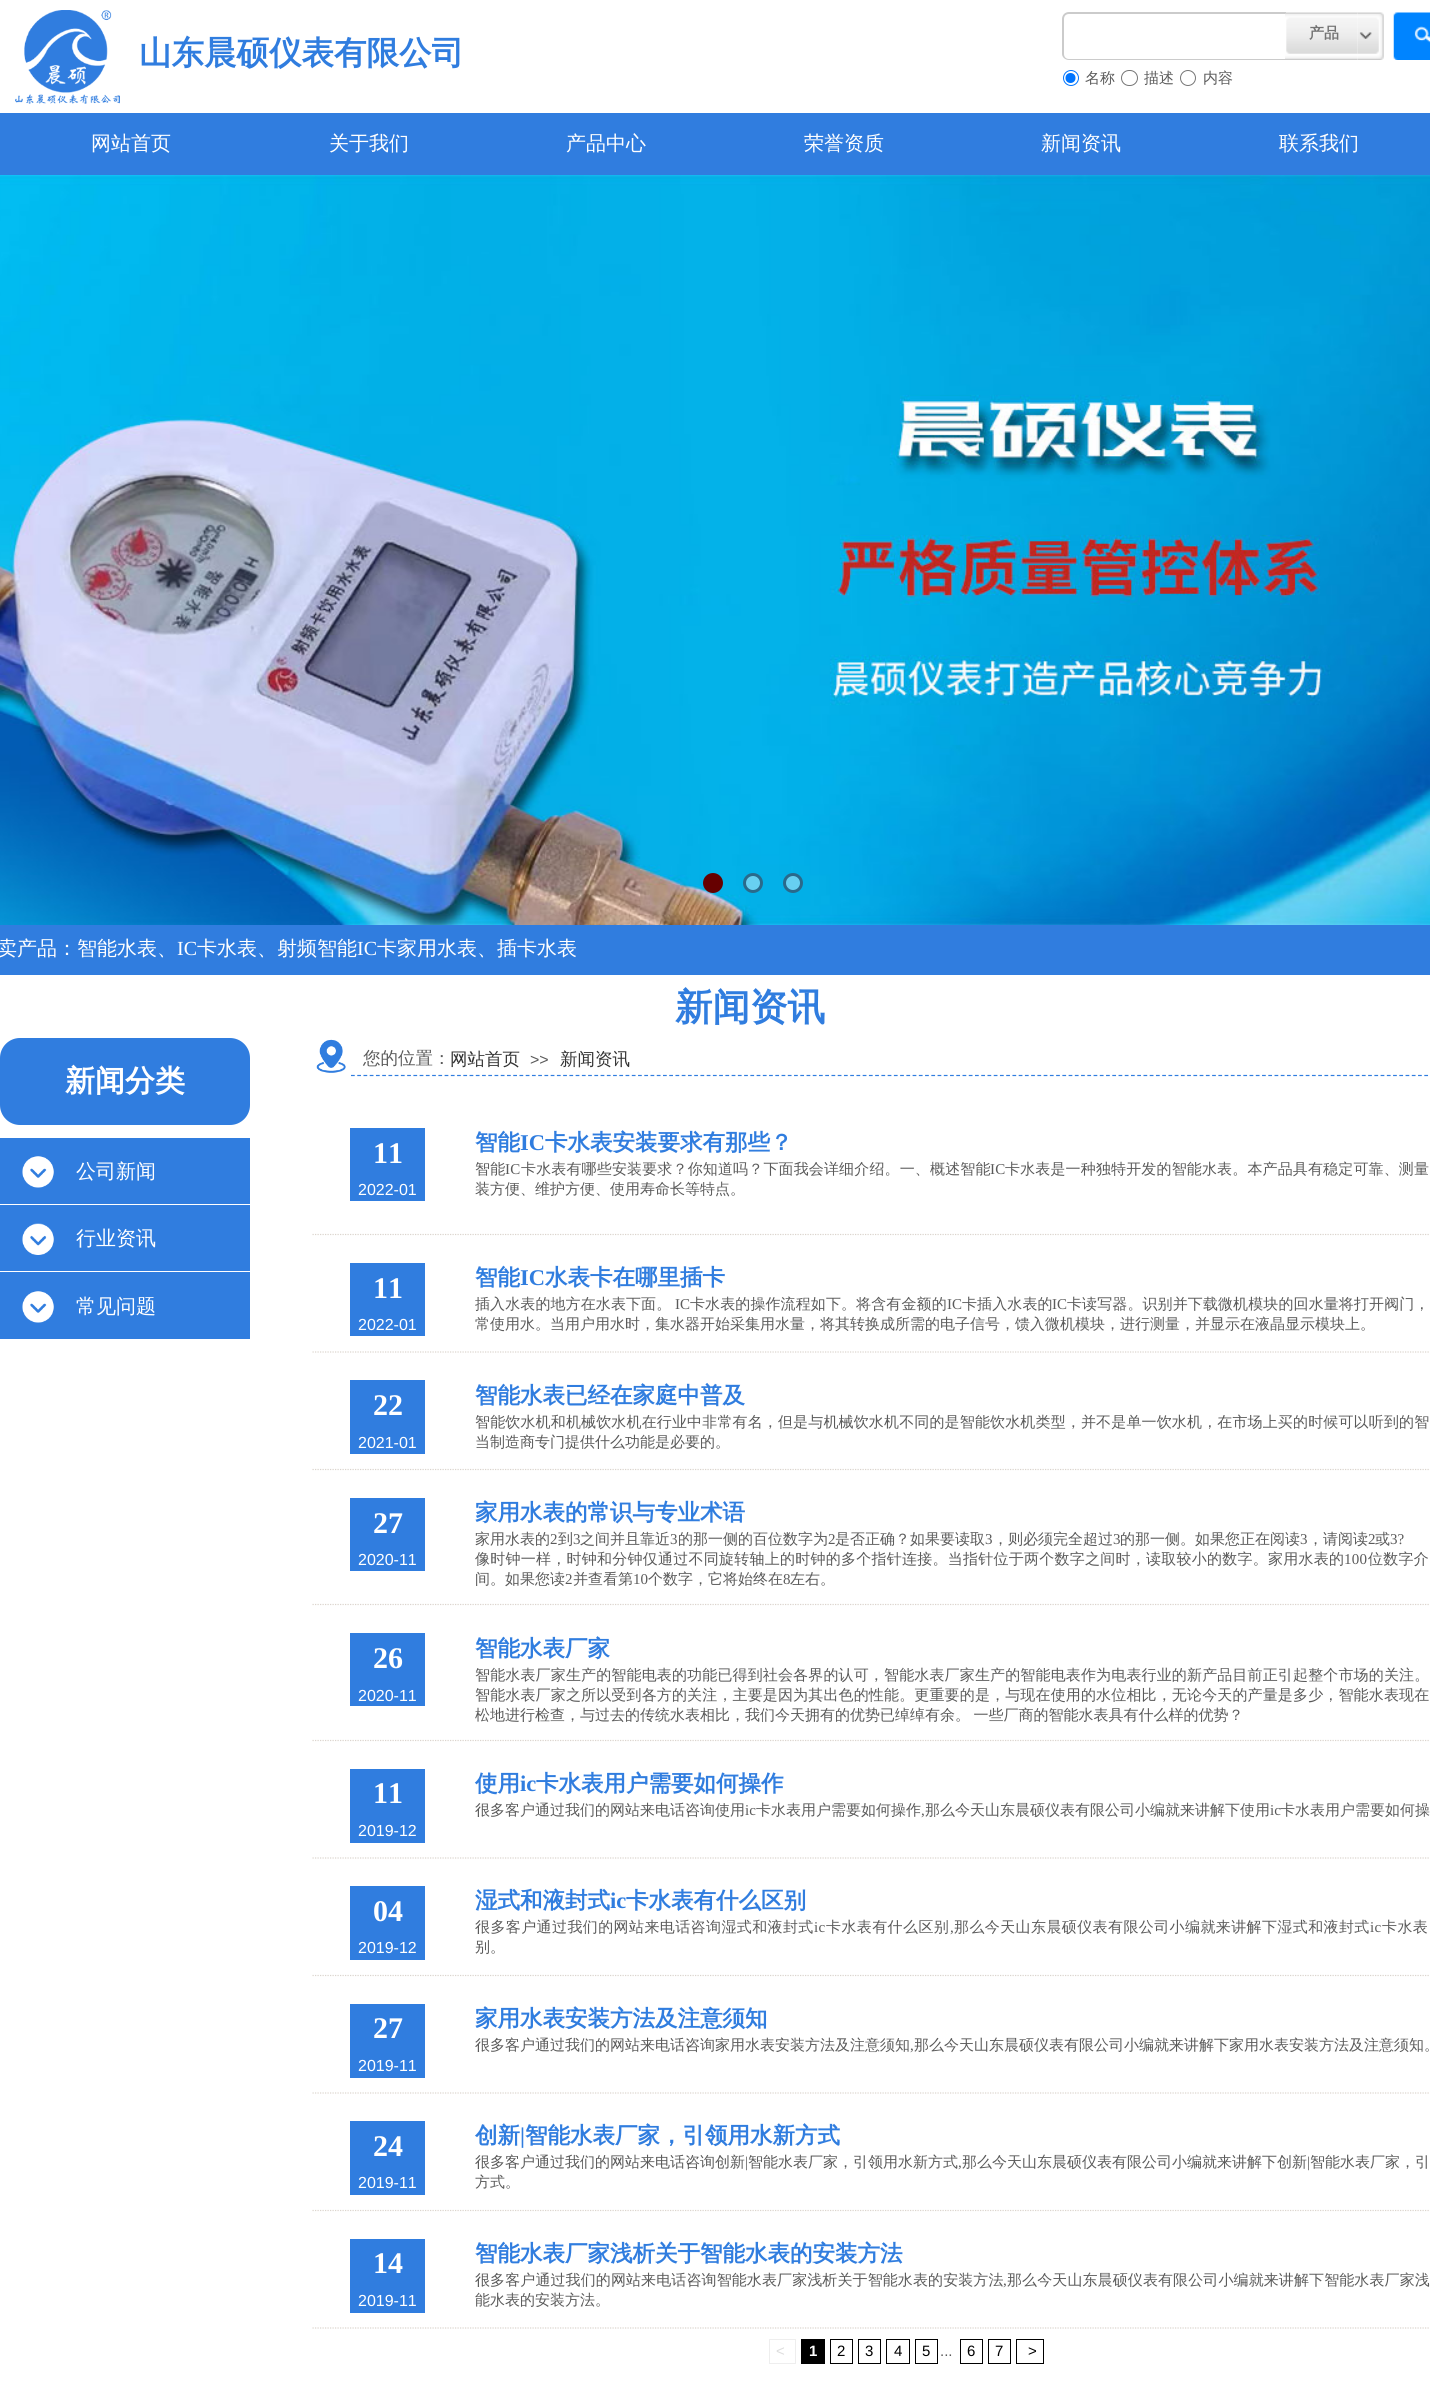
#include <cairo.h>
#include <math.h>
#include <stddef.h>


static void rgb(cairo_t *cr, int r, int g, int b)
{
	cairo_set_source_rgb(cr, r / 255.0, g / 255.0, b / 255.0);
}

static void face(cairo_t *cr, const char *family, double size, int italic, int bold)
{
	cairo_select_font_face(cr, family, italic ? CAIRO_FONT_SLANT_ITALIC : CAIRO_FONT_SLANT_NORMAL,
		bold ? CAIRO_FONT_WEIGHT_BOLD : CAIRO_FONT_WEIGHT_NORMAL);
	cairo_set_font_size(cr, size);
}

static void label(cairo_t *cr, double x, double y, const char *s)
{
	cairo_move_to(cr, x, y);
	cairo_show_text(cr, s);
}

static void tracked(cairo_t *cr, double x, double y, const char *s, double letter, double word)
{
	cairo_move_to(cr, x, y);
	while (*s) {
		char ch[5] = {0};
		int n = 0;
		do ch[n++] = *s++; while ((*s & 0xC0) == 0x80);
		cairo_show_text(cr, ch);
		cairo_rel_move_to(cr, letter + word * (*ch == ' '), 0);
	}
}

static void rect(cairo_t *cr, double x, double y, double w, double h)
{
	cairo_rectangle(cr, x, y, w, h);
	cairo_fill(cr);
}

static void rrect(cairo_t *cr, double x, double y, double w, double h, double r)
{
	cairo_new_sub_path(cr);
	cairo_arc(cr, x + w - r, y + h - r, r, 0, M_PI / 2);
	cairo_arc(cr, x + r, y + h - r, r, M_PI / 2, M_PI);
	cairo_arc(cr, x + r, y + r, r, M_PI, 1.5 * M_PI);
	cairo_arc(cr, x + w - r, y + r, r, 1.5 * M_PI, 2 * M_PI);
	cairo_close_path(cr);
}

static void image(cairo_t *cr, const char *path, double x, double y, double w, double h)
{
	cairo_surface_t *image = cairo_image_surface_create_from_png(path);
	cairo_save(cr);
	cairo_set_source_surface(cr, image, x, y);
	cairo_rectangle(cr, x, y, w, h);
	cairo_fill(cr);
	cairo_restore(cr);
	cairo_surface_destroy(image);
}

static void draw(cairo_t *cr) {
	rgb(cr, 255, 255, 255);
	cairo_paint(cr);
	image(cr, "image0.png", 15, 10, 105, 94);
	face(cr, "WenQuanYi Zen Hei", 32.5, 0, 1);
	rgb(cr, 48, 125, 223);
	label(cr, 139, 64, "山东晨硕仪表有限公司");
	rgb(cr, 203, 203, 203);
	cairo_set_fill_rule(cr, CAIRO_FILL_RULE_EVEN_ODD);
	cairo_new_path(cr);
	cairo_move_to(cr, 1069, 12);
	cairo_line_to(cr, 1286, 12);
	cairo_line_to(cr, 1286, 60);
	cairo_line_to(cr, 1069, 60);
	cairo_curve_to(cr, 1065, 60, 1062, 57, 1062, 54);
	cairo_line_to(cr, 1062, 19);
	cairo_curve_to(cr, 1062, 15, 1065, 12, 1069, 12);
	cairo_close_path(cr);
	cairo_move_to(cr, 1069, 14);
	cairo_line_to(cr, 1286, 14);
	cairo_line_to(cr, 1286, 59);
	cairo_line_to(cr, 1069, 59);
	cairo_curve_to(cr, 1066, 59, 1064, 57, 1064, 54);
	cairo_line_to(cr, 1064, 19);
	cairo_curve_to(cr, 1064, 16, 1066, 14, 1069, 14);
	cairo_close_path(cr);
	cairo_fill(cr);
	image(cr, "image1.png", 1285, 12, 5, 48);
	image(cr, "image2.png", 1290, 12, 68, 48);
	face(cr, "WenQuanYi Zen Hei", 15, 0, 1);
	rgb(cr, 116, 116, 116);
	label(cr, 1309, 38, "产品");
	image(cr, "image3.png", 1357, 12, 27, 48);
	image(cr, "image4.png", 1393, 12, 37, 48);
	cairo_arc(cr, 1071, 78, 7.5, 0, 2 * M_PI);
	rgb(cr, 0, 117, 255);
	cairo_set_line_width(cr, 1);
	cairo_stroke(cr);
	cairo_arc(cr, 1070.5, 78, 5, 0, 2 * M_PI);
	cairo_fill(cr);
	face(cr, "WenQuanYi Zen Hei Medium", 15, 0, 0);
	rgb(cr, 90, 90, 90);
	label(cr, 1085, 83, "名称");
	rrect(cr, 1121.5, 70.5, 16, 15, 7.5);
	rgb(cr, 118, 118, 118);
	cairo_stroke(cr);
	rgb(cr, 90, 90, 90);
	label(cr, 1144, 83, "描述");
	cairo_new_path(cr);
	cairo_arc(cr, 1188, 78, 7.5, 0, 2 * M_PI);
	rgb(cr, 118, 118, 118);
	cairo_stroke(cr);
	rgb(cr, 90, 90, 90);
	label(cr, 1203, 83, "内容");
	rgb(cr, 48, 125, 223);
	rect(cr, 0, 113, 1430, 62);
	face(cr, "WenQuanYi Zen Hei Medium", 20, 0, 0);
	rgb(cr, 255, 255, 255);
	label(cr, 91, 150, "网站首页");
	label(cr, 329, 150, "关于我们");
	label(cr, 566, 150, "产品中心");
	label(cr, 804, 150, "荣誉资质");
	label(cr, 1041, 150, "新闻资讯");
	label(cr, 1279, 150, "联系我们");
	image(cr, "image5.png", 0, 175, 1430, 750);
	rgb(cr, 102, 0, 0);
	cairo_arc(cr, 713, 883, 8.5, 0, 2 * M_PI);
	cairo_fill_preserve(cr);
	cairo_set_line_width(cr, 3);
	cairo_stroke(cr);
	rgb(cr, 104, 208, 241);
	cairo_arc(cr, 753, 883, 8.5, 0, 2 * M_PI);
	cairo_fill_preserve(cr);
	rgb(cr, 42, 106, 139);
	cairo_stroke(cr);
	rgb(cr, 103, 207, 241);
	cairo_arc(cr, 793, 883, 8.5, 0, 2 * M_PI);
	cairo_fill_preserve(cr);
	rgb(cr, 42, 105, 139);
	cairo_stroke(cr);
	rgb(cr, 48, 125, 223);
	rect(cr, 0, 925, 1430, 50);
	rgb(cr, 255, 255, 255);
	label(cr, -3, 955, "卖产品：智能水表、");
	face(cr, "Liberation Serif", 20, 0, 0);
	label(cr, 177, 955, "IC");
	face(cr, "WenQuanYi Zen Hei Medium", 20, 0, 0);
	label(cr, 197, 955, "卡水表、射频智能");
	face(cr, "Liberation Serif", 20, 0, 0);
	label(cr, 357, 955, "IC");
	face(cr, "WenQuanYi Zen Hei Medium", 20, 0, 0);
	label(cr, 377, 955, "卡家用水表、插卡水表");
	face(cr, "WenQuanYi Zen Hei", 37.5, 0, 1);
	rgb(cr, 48, 125, 223);
	label(cr, 675, 1020, "新闻资讯");
	rrect(cr, 0, 1038, 250, 87, 20);
	cairo_fill(cr);
	image(cr, "image6.png", 316, 1039, 30, 34);
	face(cr, "WenQuanYi Zen Hei Medium", 17.5, 0, 0);
	rgb(cr, 90, 90, 90);
	label(cr, 363, 1064, "您的位置：");
	rgb(cr, 51, 51, 51);
	label(cr, 450, 1065, "网站首页");
	face(cr, "Liberation Sans", 16, 0, 0);
	rgb(cr, 90, 90, 90);
	label(cr, 530, 1065, ">>");
	face(cr, "WenQuanYi Zen Hei Medium", 17.5, 0, 0);
	rgb(cr, 51, 51, 51);
	label(cr, 560, 1065, "新闻资讯");
	face(cr, "WenQuanYi Zen Hei", 30, 0, 1);
	rgb(cr, 255, 255, 255);
	label(cr, 65, 1091, "新闻分类");
	cairo_new_path(cr);
	cairo_move_to(cr, 351, 1075.5);
	cairo_line_to(cr, 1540, 1075.5);
	rgb(cr, 48, 125, 223);
	cairo_set_line_width(cr, 1.2);
	cairo_set_dash(cr, (double[]){3.75, 2.49}, 2, 0);
	cairo_stroke(cr);
	rect(cr, 0, 1138, 250, 201);
	rgb(cr, 255, 255, 255);
	rect(cr, 0, 1204, 250, 1);
	image(cr, "image7.png", 22, 1156, 32, 32);
	face(cr, "WenQuanYi Zen Hei Medium", 20, 0, 0);
	label(cr, 76, 1178, "公司新闻");
	rect(cr, 0, 1271, 250, 1);
	image(cr, "image8.png", 22, 1223, 32, 32);
	label(cr, 76, 1245, "行业资讯");
	image(cr, "image9.png", 22, 1291, 32, 32);
	label(cr, 76, 1313, "常见问题");
	cairo_new_path(cr);
	cairo_move_to(cr, 312.5, 1234.5);
	cairo_line_to(cr, 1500, 1234.5);
	rgb(cr, 219, 212, 205);
	cairo_set_dash(cr, (double[]){1.25, 1.25}, 2, 0);
	cairo_stroke(cr);
	rgb(cr, 48, 125, 223);
	rect(cr, 350, 1128, 75, 73);
	face(cr, "Liberation Serif", 30, 0, 1);
	rgb(cr, 255, 255, 255);
	label(cr, 373, 1163, "11");
	face(cr, "Liberation Sans", 16, 0, 0);
	label(cr, 358, 1195, "2022-01");
	face(cr, "WenQuanYi Zen Hei", 22.5, 0, 1);
	rgb(cr, 48, 125, 223);
	label(cr, 475, 1150, "智能");
	face(cr, "Liberation Serif", 22.5, 0, 1);
	label(cr, 520, 1150, "IC");
	face(cr, "WenQuanYi Zen Hei", 22.5, 0, 1);
	label(cr, 545, 1150, "卡水表安装要求有那些？");
	face(cr, "WenQuanYi Zen Hei Medium", 15, 0, 0);
	rgb(cr, 90, 90, 90);
	tracked(cr, 475, 1174, "智能", 0.15, 0);
	face(cr, "Liberation Serif", 15, 0, 0);
	tracked(cr, 505, 1174, "IC", 0.15, 0);
	face(cr, "WenQuanYi Zen Hei Medium", 15, 0, 0);
	tracked(cr, 521, 1174, "卡水表有哪些安装要求？你知道吗？下面我会详细介绍。一、概述智能", 0.15, 0);
	face(cr, "Liberation Serif", 15, 0, 0);
	tracked(cr, 990, 1174, "IC", 0.15, 0);
	face(cr, "WenQuanYi Zen Hei Medium", 15, 0, 0);
	tracked(cr, 1005, 1174, "卡水表是一种独特开发的智能水表。本产品具有稳定可靠、测量", 0.15, 0);
	label(cr, 475, 1194, "装方便、维护方便、使用寿命长等特点。");
	cairo_new_path(cr);
	cairo_move_to(cr, 312.5, 1352);
	cairo_line_to(cr, 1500, 1352);
	rgb(cr, 219, 212, 205);
	cairo_stroke(cr);
	rgb(cr, 48, 125, 223);
	rect(cr, 350, 1263, 75, 73);
	face(cr, "Liberation Serif", 30, 0, 1);
	rgb(cr, 255, 255, 255);
	label(cr, 373, 1298, "11");
	face(cr, "Liberation Sans", 16, 0, 0);
	label(cr, 358, 1330, "2022-01");
	face(cr, "WenQuanYi Zen Hei", 22.5, 0, 1);
	rgb(cr, 48, 125, 223);
	label(cr, 475, 1285, "智能");
	face(cr, "Liberation Serif", 22.5, 0, 1);
	label(cr, 520, 1285, "IC");
	face(cr, "WenQuanYi Zen Hei", 22.5, 0, 1);
	label(cr, 545, 1285, "水表卡在哪里插卡");
	face(cr, "WenQuanYi Zen Hei Medium", 15, 0, 0);
	rgb(cr, 90, 90, 90);
	tracked(cr, 475, 1309, "插入水表的地方在水表下面。", 0.1, 0);
	face(cr, "Liberation Serif", 15, 0, 0);
	tracked(cr, 675, 1309, "IC", 0.1, 0);
	face(cr, "WenQuanYi Zen Hei Medium", 15, 0, 0);
	tracked(cr, 690, 1309, "卡水表的操作流程如下。将含有金额的", 0.1, 0);
	face(cr, "Liberation Serif", 15, 0, 0);
	tracked(cr, 947, 1309, "IC", 0.1, 0);
	face(cr, "WenQuanYi Zen Hei Medium", 15, 0, 0);
	tracked(cr, 962, 1309, "卡插入水表的", 0.1, 0);
	face(cr, "Liberation Serif", 15, 0, 0);
	tracked(cr, 1052, 1309, "IC", 0.1, 0);
	face(cr, "WenQuanYi Zen Hei Medium", 15, 0, 0);
	tracked(cr, 1067, 1309, "卡读写器。识别并下载微机模块的回水量将打开阀门，", 0.1, 0);
	label(cr, 475, 1329, "常使用水。当用户用水时，集水器开始采集用水量，将其转换成所需的电子信号，馈入微机模块，进行测量，并显示在液晶显示模块上。");
	cairo_new_path(cr);
	cairo_move_to(cr, 312.5, 1469.5);
	cairo_line_to(cr, 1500, 1469.5);
	rgb(cr, 219, 212, 205);
	cairo_stroke(cr);
	rgb(cr, 48, 125, 223);
	rect(cr, 350, 1380, 75, 74);
	face(cr, "Liberation Serif", 30, 0, 1);
	rgb(cr, 255, 255, 255);
	label(cr, 373, 1415, "22");
	face(cr, "Liberation Sans", 16, 0, 0);
	label(cr, 358, 1448, "2021-01");
	face(cr, "WenQuanYi Zen Hei", 22.5, 0, 1);
	rgb(cr, 48, 125, 223);
	label(cr, 475, 1403, "智能水表已经在家庭中普及");
	face(cr, "WenQuanYi Zen Hei Medium", 15, 0, 0);
	rgb(cr, 90, 90, 90);
	tracked(cr, 475, 1427, "智能饮水机和机械饮水机在行业中非常有名，但是与机械饮水机不同的是智能饮水机类型，并不是单一饮水机，在市场上买的时候可以听到的智", 0.15, 0);
	label(cr, 475, 1447, "当制造商专门提供什么功能是必要的。");
	cairo_new_path(cr);
	cairo_move_to(cr, 312.5, 1604.5);
	cairo_line_to(cr, 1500, 1604.5);
	rgb(cr, 219, 212, 205);
	cairo_stroke(cr);
	rgb(cr, 48, 125, 223);
	rect(cr, 350, 1498, 75, 73);
	face(cr, "Liberation Serif", 30, 0, 1);
	rgb(cr, 255, 255, 255);
	label(cr, 373, 1533, "27");
	face(cr, "Liberation Sans", 16, 0, 0);
	label(cr, 358, 1565, "2020-11");
	face(cr, "WenQuanYi Zen Hei", 22.5, 0, 1);
	rgb(cr, 48, 125, 223);
	label(cr, 475, 1520, "家用水表的常识与专业术语");
	face(cr, "WenQuanYi Zen Hei Medium", 15, 0, 0);
	rgb(cr, 90, 90, 90);
	label(cr, 475, 1544, "家用水表的");
	face(cr, "Liberation Serif", 15, 0, 0);
	label(cr, 550, 1544, "2");
	face(cr, "WenQuanYi Zen Hei Medium", 15, 0, 0);
	label(cr, 558, 1544, "到");
	face(cr, "Liberation Serif", 15, 0, 0);
	label(cr, 573, 1544, "3");
	face(cr, "WenQuanYi Zen Hei Medium", 15, 0, 0);
	label(cr, 580, 1544, "之间并且靠近");
	face(cr, "Liberation Serif", 15, 0, 0);
	label(cr, 670, 1544, "3");
	face(cr, "WenQuanYi Zen Hei Medium", 15, 0, 0);
	label(cr, 678, 1544, "的那一侧的百位数字为");
	face(cr, "Liberation Serif", 15, 0, 0);
	label(cr, 828, 1544, "2");
	face(cr, "WenQuanYi Zen Hei Medium", 15, 0, 0);
	label(cr, 835, 1544, "是否正确？如果要读取");
	face(cr, "Liberation Serif", 15, 0, 0);
	label(cr, 985, 1544, "3");
	face(cr, "WenQuanYi Zen Hei Medium", 15, 0, 0);
	label(cr, 993, 1544, "，则必须完全超过");
	face(cr, "Liberation Serif", 15, 0, 0);
	label(cr, 1113, 1544, "3");
	face(cr, "WenQuanYi Zen Hei Medium", 15, 0, 0);
	label(cr, 1120, 1544, "的那一侧。如果您正在阅读");
	face(cr, "Liberation Serif", 15, 0, 0);
	label(cr, 1300, 1544, "3");
	face(cr, "WenQuanYi Zen Hei Medium", 15, 0, 0);
	label(cr, 1308, 1544, "，请阅读");
	face(cr, "Liberation Serif", 15, 0, 0);
	label(cr, 1368, 1544, "2");
	face(cr, "WenQuanYi Zen Hei Medium", 15, 0, 0);
	label(cr, 1375, 1544, "或");
	face(cr, "Liberation Serif", 15, 0, 0);
	label(cr, 1390, 1544, "3?");
	face(cr, "WenQuanYi Zen Hei Medium", 15, 0, 0);
	tracked(cr, 475, 1564, "像时钟一样，时钟和分钟仅通过不同旋转轴上的时钟的多个指针连接。当指针位于两个数字之间时，读取较小的数字。家用水表的", 0.25, 0);
	face(cr, "Liberation Serif", 15, 0, 0);
	tracked(cr, 1344, 1564, "100", 0.25, 0);
	face(cr, "WenQuanYi Zen Hei Medium", 15, 0, 0);
	tracked(cr, 1368, 1564, "位数字介", 0.25, 0);
	label(cr, 475, 1584, "间。如果您读");
	face(cr, "Liberation Serif", 15, 0, 0);
	label(cr, 565, 1584, "2");
	face(cr, "WenQuanYi Zen Hei Medium", 15, 0, 0);
	label(cr, 573, 1584, "并查看第");
	face(cr, "Liberation Serif", 15, 0, 0);
	label(cr, 633, 1584, "10");
	face(cr, "WenQuanYi Zen Hei Medium", 15, 0, 0);
	label(cr, 648, 1584, "个数字，它将始终在");
	face(cr, "Liberation Serif", 15, 0, 0);
	label(cr, 783, 1584, "8");
	face(cr, "WenQuanYi Zen Hei Medium", 15, 0, 0);
	label(cr, 790, 1584, "左右。");
	cairo_new_path(cr);
	cairo_move_to(cr, 312.5, 1740.5);
	cairo_line_to(cr, 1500, 1740.5);
	rgb(cr, 219, 212, 205);
	cairo_stroke(cr);
	rgb(cr, 48, 125, 223);
	rect(cr, 350, 1633, 75, 73);
	face(cr, "Liberation Serif", 30, 0, 1);
	rgb(cr, 255, 255, 255);
	label(cr, 373, 1668, "26");
	face(cr, "Liberation Sans", 16, 0, 0);
	label(cr, 358, 1701, "2020-11");
	face(cr, "WenQuanYi Zen Hei", 22.5, 0, 1);
	rgb(cr, 48, 125, 223);
	label(cr, 475, 1656, "智能水表厂家");
	face(cr, "WenQuanYi Zen Hei Medium", 15, 0, 0);
	rgb(cr, 90, 90, 90);
	tracked(cr, 475, 1680, "智能水表厂家生产的智能电表的功能已得到社会各界的认可，智能水表厂家生产的智能电表作为电表行业的新产品目前正引起整个市场的关注。", 0.15, 0);
	tracked(cr, 475, 1700, "智能水表厂家之所以受到各方的关注，主要是因为其出色的性能。更重要的是，与现在使用的水位相比，无论今天的产量是多少，智能水表现在", 0.15, 0);
	tracked(cr, 475, 1720, "松地进行检查，与过去的传统水表相比，我们今天拥有的优势已绰绰有余。 一些厂商的智能水表具有什么样的优势？", 0, -1);
	cairo_new_path(cr);
	cairo_move_to(cr, 312.5, 1858);
	cairo_line_to(cr, 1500, 1858);
	rgb(cr, 219, 212, 205);
	cairo_stroke(cr);
	rgb(cr, 48, 125, 223);
	rect(cr, 350, 1769, 75, 74);
	face(cr, "Liberation Serif", 30, 0, 1);
	rgb(cr, 255, 255, 255);
	label(cr, 373, 1803, "11");
	face(cr, "Liberation Sans", 16, 0, 0);
	label(cr, 358, 1836, "2019-12");
	face(cr, "WenQuanYi Zen Hei", 22.5, 0, 1);
	rgb(cr, 48, 125, 223);
	label(cr, 475, 1791, "使用");
	face(cr, "Liberation Serif", 22.5, 0, 1);
	label(cr, 520, 1791, "ic");
	face(cr, "WenQuanYi Zen Hei", 22.5, 0, 1);
	label(cr, 536, 1791, "卡水表用户需要如何操作");
	face(cr, "WenQuanYi Zen Hei Medium", 15, 0, 0);
	rgb(cr, 90, 90, 90);
	label(cr, 475, 1815, "很多客户通过我们的网站来电话咨询使用");
	face(cr, "Liberation Serif", 15, 0, 0);
	label(cr, 745, 1815, "ic");
	face(cr, "WenQuanYi Zen Hei Medium", 15, 0, 0);
	label(cr, 756, 1815, "卡水表用户需要如何操作");
	face(cr, "Liberation Serif", 15, 0, 0);
	label(cr, 921, 1815, ",");
	face(cr, "WenQuanYi Zen Hei Medium", 15, 0, 0);
	label(cr, 925, 1815, "那么今天山东晨硕仪表有限公司小编就来讲解下使用");
	face(cr, "Liberation Serif", 15, 0, 0);
	label(cr, 1270, 1815, "ic");
	face(cr, "WenQuanYi Zen Hei Medium", 15, 0, 0);
	label(cr, 1280, 1815, "卡水表用户需要如何操");
	cairo_new_path(cr);
	cairo_move_to(cr, 312.5, 1975.5);
	cairo_line_to(cr, 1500, 1975.5);
	rgb(cr, 219, 212, 205);
	cairo_stroke(cr);
	rgb(cr, 48, 125, 223);
	rect(cr, 350, 1886, 75, 74);
	face(cr, "Liberation Serif", 30, 0, 1);
	rgb(cr, 255, 255, 255);
	label(cr, 373, 1921, "04");
	face(cr, "Liberation Sans", 16, 0, 0);
	label(cr, 358, 1953, "2019-12");
	face(cr, "WenQuanYi Zen Hei", 22.5, 0, 1);
	rgb(cr, 48, 125, 223);
	label(cr, 475, 1908, "湿式和液封式");
	face(cr, "Liberation Serif", 22.5, 0, 1);
	label(cr, 610, 1908, "ic");
	face(cr, "WenQuanYi Zen Hei", 22.5, 0, 1);
	label(cr, 626, 1908, "卡水表有什么区别");
	face(cr, "WenQuanYi Zen Hei Medium", 15, 0, 0);
	rgb(cr, 90, 90, 90);
	tracked(cr, 475, 1932, "很多客户通过我们的网站来电话咨询湿式和液封式", 0.4, 0);
	face(cr, "Liberation Serif", 15, 0, 0);
	tracked(cr, 814, 1932, "ic", 0.4, 0);
	face(cr, "WenQuanYi Zen Hei Medium", 15, 0, 0);
	tracked(cr, 826, 1932, "卡水表有什么区别", 0.4, 0);
	face(cr, "Liberation Serif", 15, 0, 0);
	tracked(cr, 950, 1932, ",", 0.4, 0);
	face(cr, "WenQuanYi Zen Hei Medium", 15, 0, 0);
	tracked(cr, 954, 1932, "那么今天山东晨硕仪表有限公司小编就来讲解下湿式和液封式", 0.4, 0);
	face(cr, "Liberation Serif", 15, 0, 0);
	tracked(cr, 1370, 1932, "ic", 0.4, 0);
	face(cr, "WenQuanYi Zen Hei Medium", 15, 0, 0);
	tracked(cr, 1382, 1932, "卡水表", 0.4, 0);
	label(cr, 475, 1952, "别。");
	cairo_new_path(cr);
	cairo_move_to(cr, 312.5, 2093);
	cairo_line_to(cr, 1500, 2093);
	rgb(cr, 219, 212, 205);
	cairo_stroke(cr);
	rgb(cr, 48, 125, 223);
	rect(cr, 350, 2004, 75, 74);
	face(cr, "Liberation Serif", 30, 0, 1);
	rgb(cr, 255, 255, 255);
	label(cr, 373, 2038, "27");
	face(cr, "Liberation Sans", 16, 0, 0);
	label(cr, 358, 2071, "2019-11");
	face(cr, "WenQuanYi Zen Hei", 22.5, 0, 1);
	rgb(cr, 48, 125, 223);
	label(cr, 475, 2026, "家用水表安装方法及注意须知");
	face(cr, "WenQuanYi Zen Hei Medium", 15, 0, 0);
	rgb(cr, 90, 90, 90);
	label(cr, 475, 2050, "很多客户通过我们的网站来电话咨询家用水表安装方法及注意须知");
	face(cr, "Liberation Serif", 15, 0, 0);
	label(cr, 910, 2050, ",");
	face(cr, "WenQuanYi Zen Hei Medium", 15, 0, 0);
	label(cr, 914, 2050, "那么今天山东晨硕仪表有限公司小编就来讲解下家用水表安装方法及注意须知。");
	cairo_new_path(cr);
	cairo_move_to(cr, 312.5, 2210.5);
	cairo_line_to(cr, 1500, 2210.5);
	rgb(cr, 219, 212, 205);
	cairo_stroke(cr);
	rgb(cr, 48, 125, 223);
	rect(cr, 350, 2121, 75, 74);
	face(cr, "Liberation Serif", 30, 0, 1);
	rgb(cr, 255, 255, 255);
	label(cr, 373, 2156, "24");
	face(cr, "Liberation Sans", 16, 0, 0);
	label(cr, 358, 2188, "2019-11");
	face(cr, "WenQuanYi Zen Hei", 22.5, 0, 1);
	rgb(cr, 48, 125, 223);
	label(cr, 475, 2143, "创新");
	face(cr, "Liberation Serif", 22.5, 0, 1);
	label(cr, 520, 2143, "|");
	face(cr, "WenQuanYi Zen Hei", 22.5, 0, 1);
	label(cr, 525, 2143, "智能水表厂家，引领用水新方式");
	face(cr, "WenQuanYi Zen Hei Medium", 15, 0, 0);
	rgb(cr, 90, 90, 90);
	label(cr, 475, 2167, "很多客户通过我们的网站来电话咨询创新");
	face(cr, "Liberation Serif", 15, 0, 0);
	label(cr, 745, 2167, "|");
	face(cr, "WenQuanYi Zen Hei Medium", 15, 0, 0);
	label(cr, 748, 2167, "智能水表厂家，引领用水新方式");
	face(cr, "Liberation Serif", 15, 0, 0);
	label(cr, 958, 2167, ",");
	face(cr, "WenQuanYi Zen Hei Medium", 15, 0, 0);
	label(cr, 962, 2167, "那么今天山东晨硕仪表有限公司小编就来讲解下创新");
	face(cr, "Liberation Serif", 15, 0, 0);
	label(cr, 1307, 2167, "|");
	face(cr, "WenQuanYi Zen Hei Medium", 15, 0, 0);
	label(cr, 1310, 2167, "智能水表厂家，引");
	label(cr, 475, 2187, "方式。");
	cairo_new_path(cr);
	cairo_move_to(cr, 312.5, 2328);
	cairo_line_to(cr, 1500, 2328);
	rgb(cr, 219, 212, 205);
	cairo_stroke(cr);
	rgb(cr, 48, 125, 223);
	rect(cr, 350, 2239, 75, 74);
	face(cr, "Liberation Serif", 30, 0, 1);
	rgb(cr, 255, 255, 255);
	label(cr, 373, 2273, "14");
	face(cr, "Liberation Sans", 16, 0, 0);
	label(cr, 358, 2306, "2019-11");
	face(cr, "WenQuanYi Zen Hei", 22.5, 0, 1);
	rgb(cr, 48, 125, 223);
	label(cr, 475, 2261, "智能水表厂家浅析关于智能水表的安装方法");
	face(cr, "WenQuanYi Zen Hei Medium", 15, 0, 0);
	rgb(cr, 90, 90, 90);
	tracked(cr, 475, 2285, "很多客户通过我们的网站来电话咨询智能水表厂家浅析关于智能水表的安装方法", 0.1, 0);
	face(cr, "Liberation Serif", 15, 0, 0);
	tracked(cr, 1003, 2285, ",", 0.1, 0);
	face(cr, "WenQuanYi Zen Hei Medium", 15, 0, 0);
	tracked(cr, 1007, 2285, "那么今天山东晨硕仪表有限公司小编就来讲解下智能水表厂家浅", 0.1, 0);
	label(cr, 475, 2305, "能水表的安装方法。");
	cairo_rectangle(cr, 769.5, 2339.5, 26, 24);
	rgb(cr, 238, 238, 238);
	cairo_set_line_width(cr, 1);
	cairo_set_dash(cr, NULL, 0, 0);
	cairo_stroke(cr);
	face(cr, "Liberation Sans", 15, 0, 0);
	rgb(cr, 221, 221, 221);
	label(cr, 776, 2356, "<");
	rgb(cr, 0, 0, 0);
	rect(cr, 801, 2339, 24, 25);
	face(cr, "Liberation Sans", 15, 0, 1);
	rgb(cr, 255, 255, 255);
	label(cr, 809, 2356, "1");
	cairo_rectangle(cr, 830.5, 2339.5, 22, 24);
	rgb(cr, 0, 0, 0);
	cairo_stroke(cr);
	face(cr, "Liberation Sans", 15, 0, 0);
	label(cr, 837, 2356, "2");
	cairo_rectangle(cr, 858.5, 2339.5, 22, 24);
	cairo_stroke(cr);
	label(cr, 865, 2356, "3");
	cairo_rectangle(cr, 886.5, 2339.5, 23, 24);
	cairo_stroke(cr);
	label(cr, 894, 2356, "4");
	cairo_rectangle(cr, 915.5, 2339.5, 22, 24);
	cairo_stroke(cr);
	label(cr, 922, 2356, "5");
	rgb(cr, 90, 90, 90);
	label(cr, 940, 2356, "...");
	cairo_rectangle(cr, 960.5, 2339.5, 22, 24);
	rgb(cr, 0, 0, 0);
	cairo_stroke(cr);
	label(cr, 967, 2356, "6");
	cairo_rectangle(cr, 988.5, 2339.5, 22, 24);
	cairo_stroke(cr);
	label(cr, 995, 2356, "7");
	cairo_rectangle(cr, 1016.5, 2339.5, 27, 24);
	cairo_stroke(cr);
	label(cr, 1028, 2356, ">");
}

int main(void) {
	cairo_surface_t *surface = cairo_image_surface_create(CAIRO_FORMAT_RGB24, 1430, 2405);
	cairo_t *cr = cairo_create(surface);
	cairo_font_options_t *options = cairo_font_options_create();
	cairo_font_options_set_hint_metrics(options, CAIRO_HINT_METRICS_OFF);
	cairo_font_options_set_hint_style(options, CAIRO_HINT_STYLE_NONE);
	cairo_set_font_options(cr, options);
	cairo_set_miter_limit(cr, 4);
	draw(cr);
	cairo_surface_write_to_png(surface, "render.png");
	cairo_font_options_destroy(options);
	cairo_destroy(cr);
	cairo_surface_destroy(surface);
	return 0;
}
